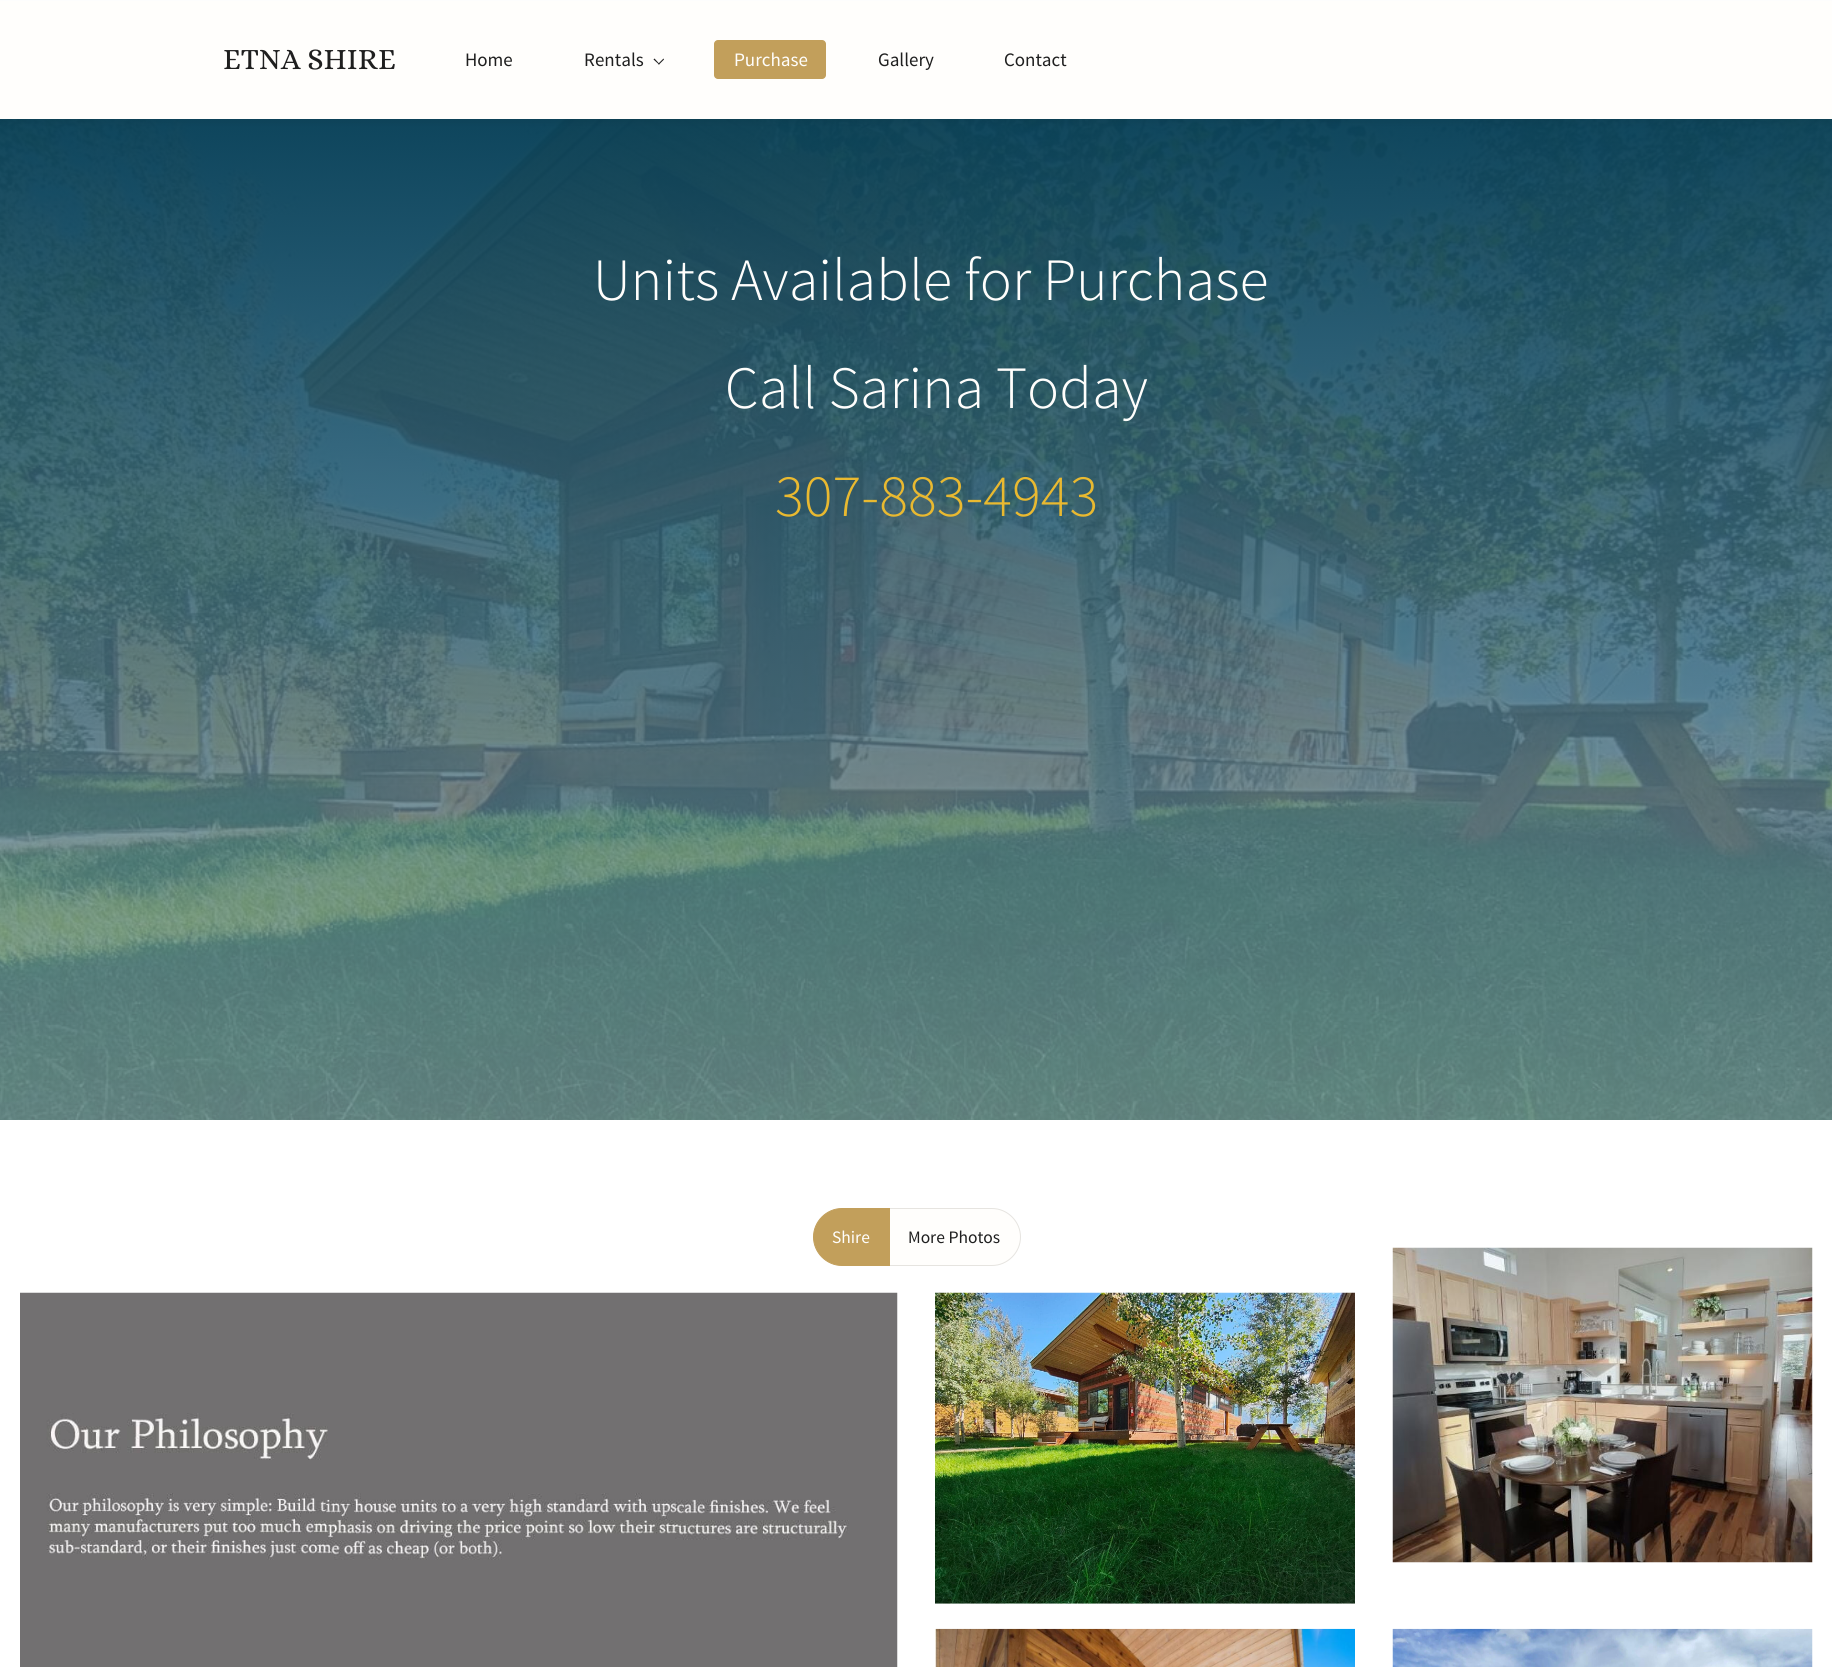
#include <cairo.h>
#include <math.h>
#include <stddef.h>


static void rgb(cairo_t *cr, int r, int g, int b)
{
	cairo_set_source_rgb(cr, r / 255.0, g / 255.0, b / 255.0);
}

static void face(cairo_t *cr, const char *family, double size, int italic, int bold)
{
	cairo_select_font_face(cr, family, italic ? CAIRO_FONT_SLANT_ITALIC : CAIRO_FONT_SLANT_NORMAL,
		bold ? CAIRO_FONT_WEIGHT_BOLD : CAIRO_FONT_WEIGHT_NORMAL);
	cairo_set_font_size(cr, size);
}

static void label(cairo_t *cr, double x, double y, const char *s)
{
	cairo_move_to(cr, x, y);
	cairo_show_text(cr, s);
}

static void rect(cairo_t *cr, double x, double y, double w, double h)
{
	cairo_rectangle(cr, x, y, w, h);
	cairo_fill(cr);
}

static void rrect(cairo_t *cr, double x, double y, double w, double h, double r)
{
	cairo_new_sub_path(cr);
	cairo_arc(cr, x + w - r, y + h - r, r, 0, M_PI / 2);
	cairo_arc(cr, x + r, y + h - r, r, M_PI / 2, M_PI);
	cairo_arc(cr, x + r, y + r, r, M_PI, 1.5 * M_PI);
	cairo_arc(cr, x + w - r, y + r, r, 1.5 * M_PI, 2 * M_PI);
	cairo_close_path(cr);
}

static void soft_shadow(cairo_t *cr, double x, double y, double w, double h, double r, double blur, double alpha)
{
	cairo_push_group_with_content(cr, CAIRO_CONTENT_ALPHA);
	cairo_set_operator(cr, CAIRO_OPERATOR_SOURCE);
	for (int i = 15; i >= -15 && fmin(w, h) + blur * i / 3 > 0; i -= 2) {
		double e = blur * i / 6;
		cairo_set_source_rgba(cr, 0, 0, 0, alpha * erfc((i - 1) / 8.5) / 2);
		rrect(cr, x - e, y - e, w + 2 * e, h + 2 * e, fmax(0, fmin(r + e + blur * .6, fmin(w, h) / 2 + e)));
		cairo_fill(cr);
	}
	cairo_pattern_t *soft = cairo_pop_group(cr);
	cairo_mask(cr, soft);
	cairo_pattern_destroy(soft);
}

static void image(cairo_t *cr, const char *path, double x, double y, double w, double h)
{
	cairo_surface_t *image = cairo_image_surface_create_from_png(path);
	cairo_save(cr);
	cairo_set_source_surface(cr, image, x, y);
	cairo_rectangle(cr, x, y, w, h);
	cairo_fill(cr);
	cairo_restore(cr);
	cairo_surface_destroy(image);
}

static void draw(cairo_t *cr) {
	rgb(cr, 255, 255, 255);
	cairo_paint(cr);
	image(cr, "image0.png", 0, 119, 1832, 1001);
	rgb(cr, 0, 0, 0);
	soft_shadow(cr, 0, 4, 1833, 119, 0, 3, 0.05);
	rgb(cr, 255, 254, 252);
	rect(cr, 0, 1, 1832, 118);
	face(cr, "Alice", 30, 0, 0);
	rgb(cr, 31, 31, 31);
	label(cr, 223, 69, "ETNA SHIRE");
	face(cr, "Source Sans Pro", 19, 0, 0);
	label(cr, 465, 66, "Home");
	label(cr, 584, 66, "Rentals");
	cairo_new_path(cr);
	cairo_move_to(cr, 664, 59.5);
	cairo_line_to(cr, 659, 64.5);
	cairo_line_to(cr, 658, 64);
	cairo_line_to(cr, 663.5, 58.5);
	cairo_close_path(cr);
	cairo_fill(cr);
	cairo_new_path(cr);
	cairo_move_to(cr, 659.5, 64);
	cairo_line_to(cr, 659, 64.5);
	cairo_line_to(cr, 653.5, 59.5);
	cairo_line_to(cr, 654.5, 58.5);
	cairo_close_path(cr);
	cairo_fill(cr);
	rgb(cr, 194, 159, 91);
	rrect(cr, 714, 40, 112, 39, 4);
	cairo_fill(cr);
	rgb(cr, 255, 254, 252);
	label(cr, 734, 66, "Purchase");
	rgb(cr, 31, 31, 31);
	label(cr, 878, 66, "Gallery");
	label(cr, 1004, 66, "Contact");
	face(cr, "Source Sans Pro Light", 60, 0, 0);
	rgb(cr, 255, 254, 252);
	label(cr, 593, 300, "Units Available for Purchase");
	label(cr, 725, 408, "Call Sarina Today");
	rgb(cr, 233, 185, 48);
	label(cr, 775, 516, "307-883-4943");
	rgb(cr, 255, 254, 252);
	cairo_new_path(cr);
	cairo_move_to(cr, 889.5, 1208.5);
	cairo_line_to(cr, 992, 1208.5);
	cairo_curve_to(cr, 1007.5, 1208.5, 1020.5, 1221.5, 1020.5, 1237);
	cairo_curve_to(cr, 1020.5, 1252.5, 1007.5, 1265.5, 992, 1265.5);
	cairo_line_to(cr, 889.5, 1265.5);
	cairo_close_path(cr);
	cairo_fill_preserve(cr);
	rgb(cr, 230, 228, 224);
	cairo_set_line_width(cr, 1);
	cairo_stroke(cr);
	rgb(cr, 194, 159, 91);
	cairo_new_path(cr);
	cairo_move_to(cr, 842, 1208.5);
	cairo_line_to(cr, 889.5, 1208.5);
	cairo_line_to(cr, 889.5, 1265.5);
	cairo_line_to(cr, 842, 1265.5);
	cairo_curve_to(cr, 826.5, 1265.5, 813.5, 1252.5, 813.5, 1237);
	cairo_curve_to(cr, 813.5, 1221.5, 826.5, 1208.5, 842, 1208.5);
	cairo_close_path(cr);
	cairo_fill_preserve(cr);
	cairo_stroke(cr);
	face(cr, "Source Sans Pro", 17.5, 0, 0);
	rgb(cr, 255, 254, 252);
	label(cr, 832, 1243, "Shire");
	rgb(cr, 31, 31, 31);
	label(cr, 908, 1243, "More Photos");
	image(cr, "image1.png", 20, 1292, 878, 375);
	image(cr, "image2.png", 935, 1292, 420, 312);
	image(cr, "image3.png", 1392, 1247, 421, 316);
	image(cr, "image4.png", 935, 1628, 420, 39);
	image(cr, "image5.png", 1392, 1628, 421, 39);
}

int main(void) {
	cairo_surface_t *surface = cairo_image_surface_create(CAIRO_FORMAT_RGB24, 1832, 1667);
	cairo_t *cr = cairo_create(surface);
	cairo_font_options_t *options = cairo_font_options_create();
	cairo_font_options_set_hint_metrics(options, CAIRO_HINT_METRICS_OFF);
	cairo_font_options_set_hint_style(options, CAIRO_HINT_STYLE_NONE);
	cairo_set_font_options(cr, options);
	cairo_set_miter_limit(cr, 4);
	draw(cr);
	cairo_surface_write_to_png(surface, "render.png");
	cairo_font_options_destroy(options);
	cairo_destroy(cr);
	cairo_surface_destroy(surface);
	return 0;
}
